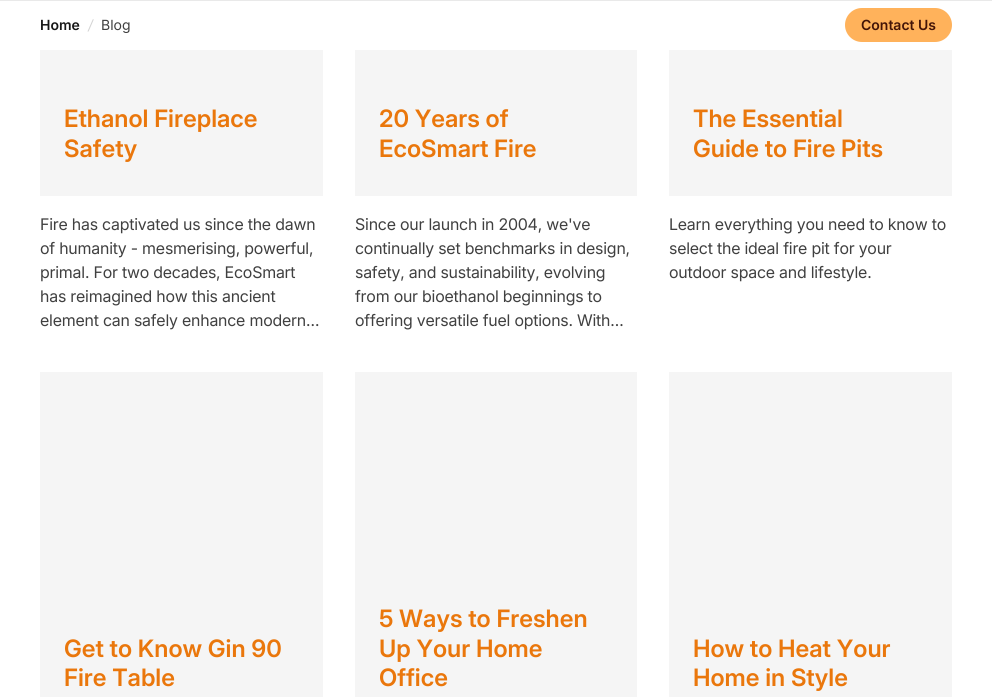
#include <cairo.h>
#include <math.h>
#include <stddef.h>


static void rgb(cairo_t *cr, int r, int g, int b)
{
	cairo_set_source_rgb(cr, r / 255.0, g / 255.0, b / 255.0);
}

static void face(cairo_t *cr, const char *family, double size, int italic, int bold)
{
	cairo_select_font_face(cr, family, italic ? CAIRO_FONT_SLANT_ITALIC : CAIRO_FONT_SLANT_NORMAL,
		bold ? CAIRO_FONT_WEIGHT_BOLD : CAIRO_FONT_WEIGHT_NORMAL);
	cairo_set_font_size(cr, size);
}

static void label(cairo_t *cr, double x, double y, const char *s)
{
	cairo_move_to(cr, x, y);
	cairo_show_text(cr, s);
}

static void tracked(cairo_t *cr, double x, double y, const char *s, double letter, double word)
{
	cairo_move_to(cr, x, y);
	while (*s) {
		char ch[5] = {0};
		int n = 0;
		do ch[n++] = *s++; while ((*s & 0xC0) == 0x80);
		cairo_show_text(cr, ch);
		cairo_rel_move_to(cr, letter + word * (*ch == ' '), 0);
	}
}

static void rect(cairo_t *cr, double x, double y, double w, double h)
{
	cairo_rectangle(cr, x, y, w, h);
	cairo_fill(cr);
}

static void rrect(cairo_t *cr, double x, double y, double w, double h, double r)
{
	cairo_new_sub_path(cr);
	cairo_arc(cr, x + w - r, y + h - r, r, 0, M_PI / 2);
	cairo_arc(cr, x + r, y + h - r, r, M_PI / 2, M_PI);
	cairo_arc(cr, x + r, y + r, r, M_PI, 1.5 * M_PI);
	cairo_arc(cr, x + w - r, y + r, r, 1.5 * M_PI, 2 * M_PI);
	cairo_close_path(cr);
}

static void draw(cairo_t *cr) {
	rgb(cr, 255, 255, 255);
	cairo_paint(cr);
	rgb(cr, 233, 233, 233);
	rect(cr, 0, 0, 992, 1);
	face(cr, "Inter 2 SemiBold", 14, 0, 0);
	rgb(cr, 23, 23, 23);
	label(cr, 40, 30, "Home");
	face(cr, "Inter", 14, 1, 0);
	rgb(cr, 212, 212, 212);
	label(cr, 88, 30, "/");
	face(cr, "Inter 2", 14, 0, 0);
	rgb(cr, 64, 64, 64);
	label(cr, 101, 30, "Blog");
	rgb(cr, 255, 178, 91);
	rrect(cr, 845, 8, 107, 34, 17);
	cairo_fill(cr);
	face(cr, "Inter 2 SemiBold", 14, 0, 0);
	rgb(cr, 67, 20, 7);
	label(cr, 861, 30, "Contact Us");
	rgb(cr, 245, 245, 245);
	rect(cr, 40, 50, 283, 146);
	face(cr, "Inter SemiBold", 24, 0, 0);
	rgb(cr, 234, 119, 12);
	label(cr, 64, 127, "Ethanol Fireplace");
	label(cr, 64, 157, "Safety");
	face(cr, "Inter", 16, 0, 0);
	rgb(cr, 64, 64, 64);
	tracked(cr, 40, 230, "Fire has captivated us since the dawn", -0.2, 0);
	tracked(cr, 40, 254, "of humanity - mesmerising, powerful,", -0.2, 0);
	tracked(cr, 40, 278, "primal. For two decades, EcoSmart", -0.2, 0);
	tracked(cr, 40, 302, "has reimagined how this ancient", -0.2, 0);
	tracked(cr, 40, 326, "element can safely enhance modern…", -0.2, 0);
	rgb(cr, 245, 245, 245);
	rect(cr, 355, 50, 282, 146);
	face(cr, "Inter SemiBold", 24, 0, 0);
	rgb(cr, 234, 119, 12);
	label(cr, 379, 127, "20 Years of");
	label(cr, 379, 157, "EcoSmart Fire");
	face(cr, "Inter", 16, 0, 0);
	rgb(cr, 64, 64, 64);
	tracked(cr, 355, 230, "Since our launch in 2004, we've", -0.2, 0);
	tracked(cr, 355, 254, "continually set benchmarks in design,", -0.2, 0);
	tracked(cr, 355, 278, "safety, and sustainability, evolving", -0.2, 0);
	tracked(cr, 355, 302, "from our bioethanol beginnings to", -0.2, 0);
	tracked(cr, 355, 326, "offering versatile fuel options. With…", -0.2, 0);
	rgb(cr, 245, 245, 245);
	rect(cr, 669, 50, 283, 146);
	face(cr, "Inter SemiBold", 24, 0, 0);
	rgb(cr, 234, 119, 12);
	label(cr, 693, 127, "The Essential");
	label(cr, 693, 157, "Guide to Fire Pits");
	face(cr, "Inter", 16, 0, 0);
	rgb(cr, 64, 64, 64);
	tracked(cr, 669, 230, "Learn everything you need to know to", -0.2, 0);
	tracked(cr, 669, 254, "select the ideal fire pit for your", -0.2, 0);
	tracked(cr, 669, 278, "outdoor space and lifestyle.", -0.2, 0);
	rgb(cr, 245, 245, 245);
	rect(cr, 40, 372, 283, 325);
	face(cr, "Inter SemiBold", 24, 0, 0);
	rgb(cr, 234, 119, 12);
	label(cr, 64, 657, "Get to Know Gin 90");
	label(cr, 64, 686, "Fire Table");
	rgb(cr, 245, 245, 245);
	rect(cr, 355, 372, 282, 325);
	rgb(cr, 234, 119, 12);
	label(cr, 379, 627, "5 Ways to Freshen");
	label(cr, 379, 657, "Up Your Home");
	label(cr, 379, 686, "Office");
	rgb(cr, 245, 245, 245);
	rect(cr, 669, 372, 283, 325);
	rgb(cr, 234, 119, 12);
	label(cr, 693, 657, "How to Heat Your");
	label(cr, 693, 686, "Home in Style");
}

int main(void) {
	cairo_surface_t *surface = cairo_image_surface_create(CAIRO_FORMAT_RGB24, 992, 697);
	cairo_t *cr = cairo_create(surface);
	cairo_font_options_t *options = cairo_font_options_create();
	cairo_font_options_set_hint_metrics(options, CAIRO_HINT_METRICS_OFF);
	cairo_font_options_set_hint_style(options, CAIRO_HINT_STYLE_NONE);
	cairo_set_font_options(cr, options);
	cairo_set_miter_limit(cr, 4);
	draw(cr);
	cairo_surface_write_to_png(surface, "render.png");
	cairo_font_options_destroy(options);
	cairo_destroy(cr);
	cairo_surface_destroy(surface);
	return 0;
}
